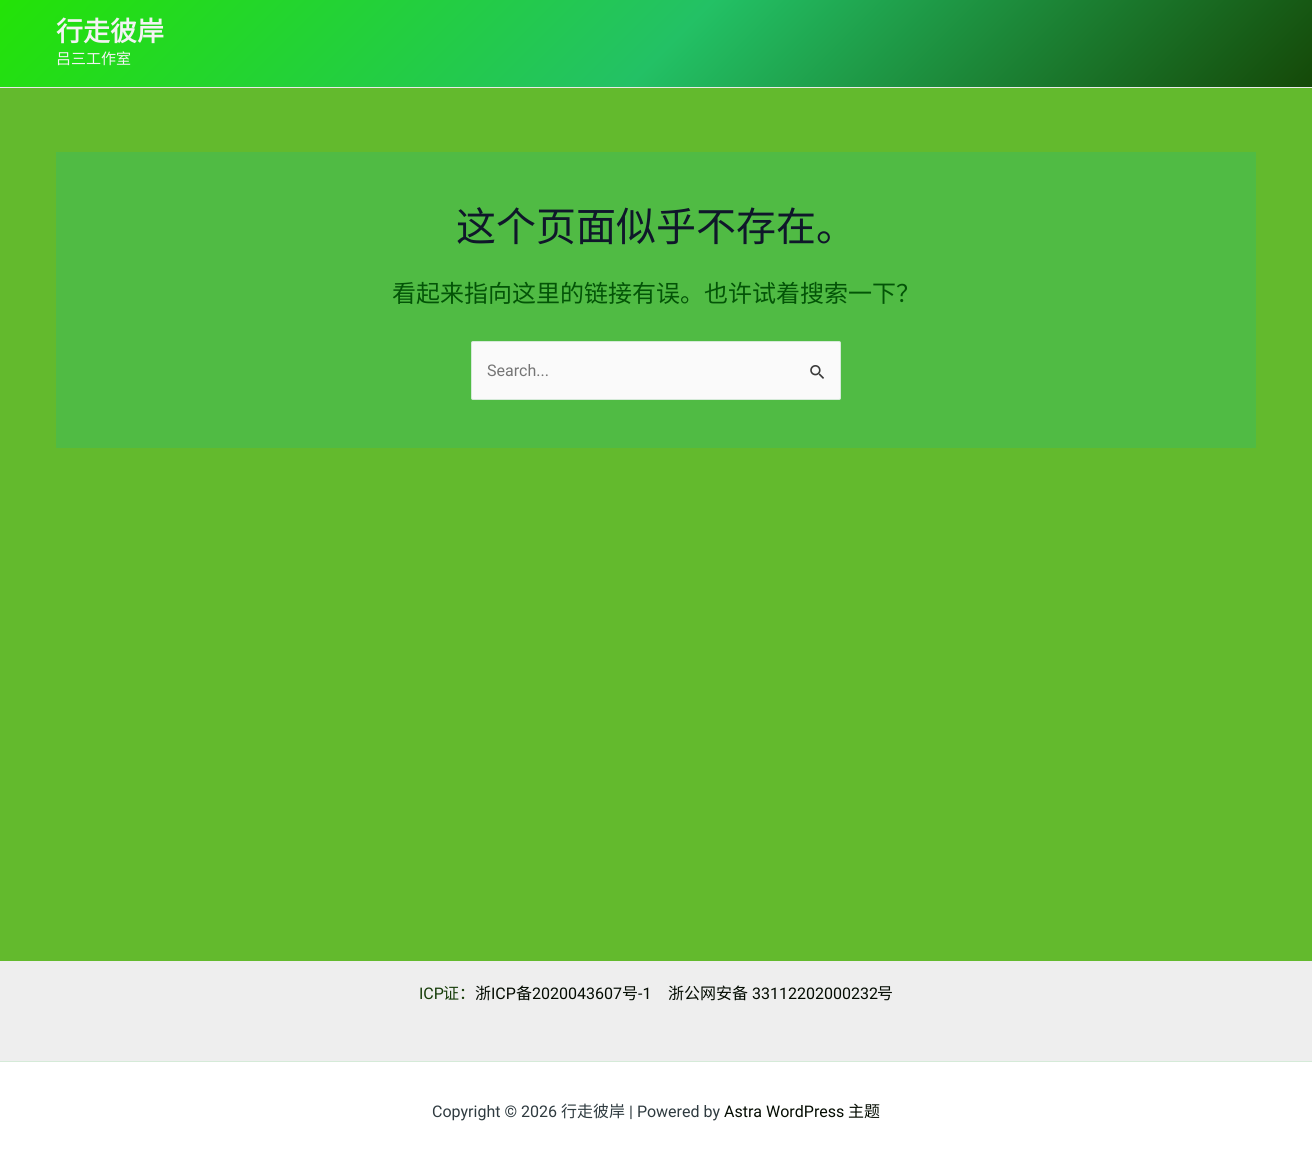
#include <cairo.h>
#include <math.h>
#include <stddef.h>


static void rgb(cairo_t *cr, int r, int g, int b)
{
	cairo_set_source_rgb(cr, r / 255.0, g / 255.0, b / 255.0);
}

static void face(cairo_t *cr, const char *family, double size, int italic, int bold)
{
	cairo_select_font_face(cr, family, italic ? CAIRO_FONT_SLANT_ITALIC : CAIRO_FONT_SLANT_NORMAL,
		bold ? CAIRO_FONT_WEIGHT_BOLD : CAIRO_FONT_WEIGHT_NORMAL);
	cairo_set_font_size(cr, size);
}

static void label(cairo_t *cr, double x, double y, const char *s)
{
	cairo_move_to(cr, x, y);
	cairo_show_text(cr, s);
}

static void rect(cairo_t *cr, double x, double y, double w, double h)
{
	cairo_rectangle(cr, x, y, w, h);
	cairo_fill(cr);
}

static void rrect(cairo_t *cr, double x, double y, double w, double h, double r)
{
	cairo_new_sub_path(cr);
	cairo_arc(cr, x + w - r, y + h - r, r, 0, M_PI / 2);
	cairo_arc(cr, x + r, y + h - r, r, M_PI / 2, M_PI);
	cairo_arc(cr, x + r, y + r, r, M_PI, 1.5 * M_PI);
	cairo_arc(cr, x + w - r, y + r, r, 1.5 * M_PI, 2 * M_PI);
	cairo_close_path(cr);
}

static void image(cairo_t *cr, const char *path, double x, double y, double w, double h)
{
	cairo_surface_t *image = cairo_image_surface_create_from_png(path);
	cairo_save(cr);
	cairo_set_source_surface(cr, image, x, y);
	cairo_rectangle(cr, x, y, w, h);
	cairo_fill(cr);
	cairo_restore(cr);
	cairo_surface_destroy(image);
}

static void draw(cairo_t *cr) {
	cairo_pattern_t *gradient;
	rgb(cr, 99, 186, 45);
	cairo_paint(cr);
	gradient = cairo_pattern_create_linear(306, -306, 1006, 393);
	cairo_pattern_add_color_stop_rgba(gradient, 0, 0.137, 0.89, 0.027, 1);
	cairo_pattern_add_color_stop_rgba(gradient, 0.51, 0.137, 0.757, 0.396, 1);
	cairo_pattern_add_color_stop_rgba(gradient, 1, 0.082, 0.286, 0.031, 1);
	cairo_set_source(cr, gradient);
	cairo_pattern_destroy(gradient);
	rect(cr, 0, 0, 1312, 87);
	rgb(cr, 234, 234, 234);
	rect(cr, 0, 87, 1312, 1);
	face(cr, "Noto Sans CJK SC", 27, 0, 1);
	rgb(cr, 243, 243, 243);
	label(cr, 56, 41, "行走彼岸");
	face(cr, "Noto Sans CJK SC", 15, 0, 0);
	label(cr, 56, 64, "吕三工作室");
	rgb(cr, 80, 187, 68);
	rect(cr, 56, 152, 1200, 296);
	face(cr, "Noto Sans CJK SC", 40, 0, 0);
	rgb(cr, 15, 23, 42);
	label(cr, 456, 241, "这个页面似乎不存在。");
	face(cr, "Noto Sans CJK SC", 24, 0, 0);
	rgb(cr, 3, 84, 7);
	label(cr, 392, 302, "看起来指向这里的链接有误。也许试着搜索一下？");
	rgb(cr, 250, 250, 250);
	rrect(cr, 471.5, 341.5, 369, 58, 1.5);
	cairo_fill_preserve(cr);
	rgb(cr, 213, 234, 216);
	cairo_set_line_width(cr, 1);
	cairo_stroke(cr);
	face(cr, "Roboto", 16, 0, 0);
	rgb(cr, 117, 117, 117);
	label(cr, 487, 376, "Search...");
	image(cr, "image0.png", 810, 365, 14, 14);
	rgb(cr, 238, 238, 238);
	rect(cr, 0, 961, 1312, 100);
	rgb(cr, 21, 60, 8);
	label(cr, 419, 999, "ICP");
	face(cr, "Noto Sans CJK SC", 16, 0, 0);
	label(cr, 443, 999, "证：");
	rgb(cr, 4, 12, 2);
	label(cr, 475, 999, "浙");
	face(cr, "Roboto", 16, 0, 0);
	label(cr, 491, 999, "ICP");
	face(cr, "Noto Sans CJK SC", 16, 0, 0);
	label(cr, 516, 999, "备");
	face(cr, "Roboto", 16, 0, 0);
	label(cr, 532, 999, "2020043607");
	face(cr, "Noto Sans CJK SC", 16, 0, 0);
	label(cr, 622, 999, "号");
	face(cr, "Roboto", 16, 0, 0);
	label(cr, 638, 999, "-1");
	face(cr, "Noto Sans CJK SC", 16, 0, 0);
	label(cr, 668, 999, "浙公网安备");
	face(cr, "Roboto", 16, 0, 0);
	label(cr, 752, 999, "33112202000232");
	face(cr, "Noto Sans CJK SC", 16, 0, 0);
	label(cr, 877, 999, "号");
	rgb(cr, 255, 255, 255);
	rect(cr, 0, 1062, 1312, 100);
	rgb(cr, 213, 234, 216);
	rect(cr, 0, 1061, 1312, 1);
	face(cr, "Roboto", 16, 0, 0);
	rgb(cr, 47, 59, 64);
	label(cr, 432, 1117, "Copyright © 2026");
	face(cr, "Noto Sans CJK SC", 16, 0, 0);
	label(cr, 561, 1117, "行走彼岸");
	face(cr, "Roboto", 16, 0, 0);
	label(cr, 629, 1117, "| Powered by");
	rgb(cr, 4, 12, 2);
	label(cr, 724, 1117, "Astra WordPress");
	face(cr, "Noto Sans CJK SC", 16, 0, 0);
	label(cr, 848, 1117, "主题");
}

int main(void) {
	cairo_surface_t *surface = cairo_image_surface_create(CAIRO_FORMAT_RGB24, 1312, 1162);
	cairo_t *cr = cairo_create(surface);
	cairo_font_options_t *options = cairo_font_options_create();
	cairo_font_options_set_hint_metrics(options, CAIRO_HINT_METRICS_OFF);
	cairo_font_options_set_hint_style(options, CAIRO_HINT_STYLE_NONE);
	cairo_set_font_options(cr, options);
	cairo_set_miter_limit(cr, 4);
	draw(cr);
	cairo_surface_write_to_png(surface, "render.png");
	cairo_font_options_destroy(options);
	cairo_destroy(cr);
	cairo_surface_destroy(surface);
	return 0;
}
